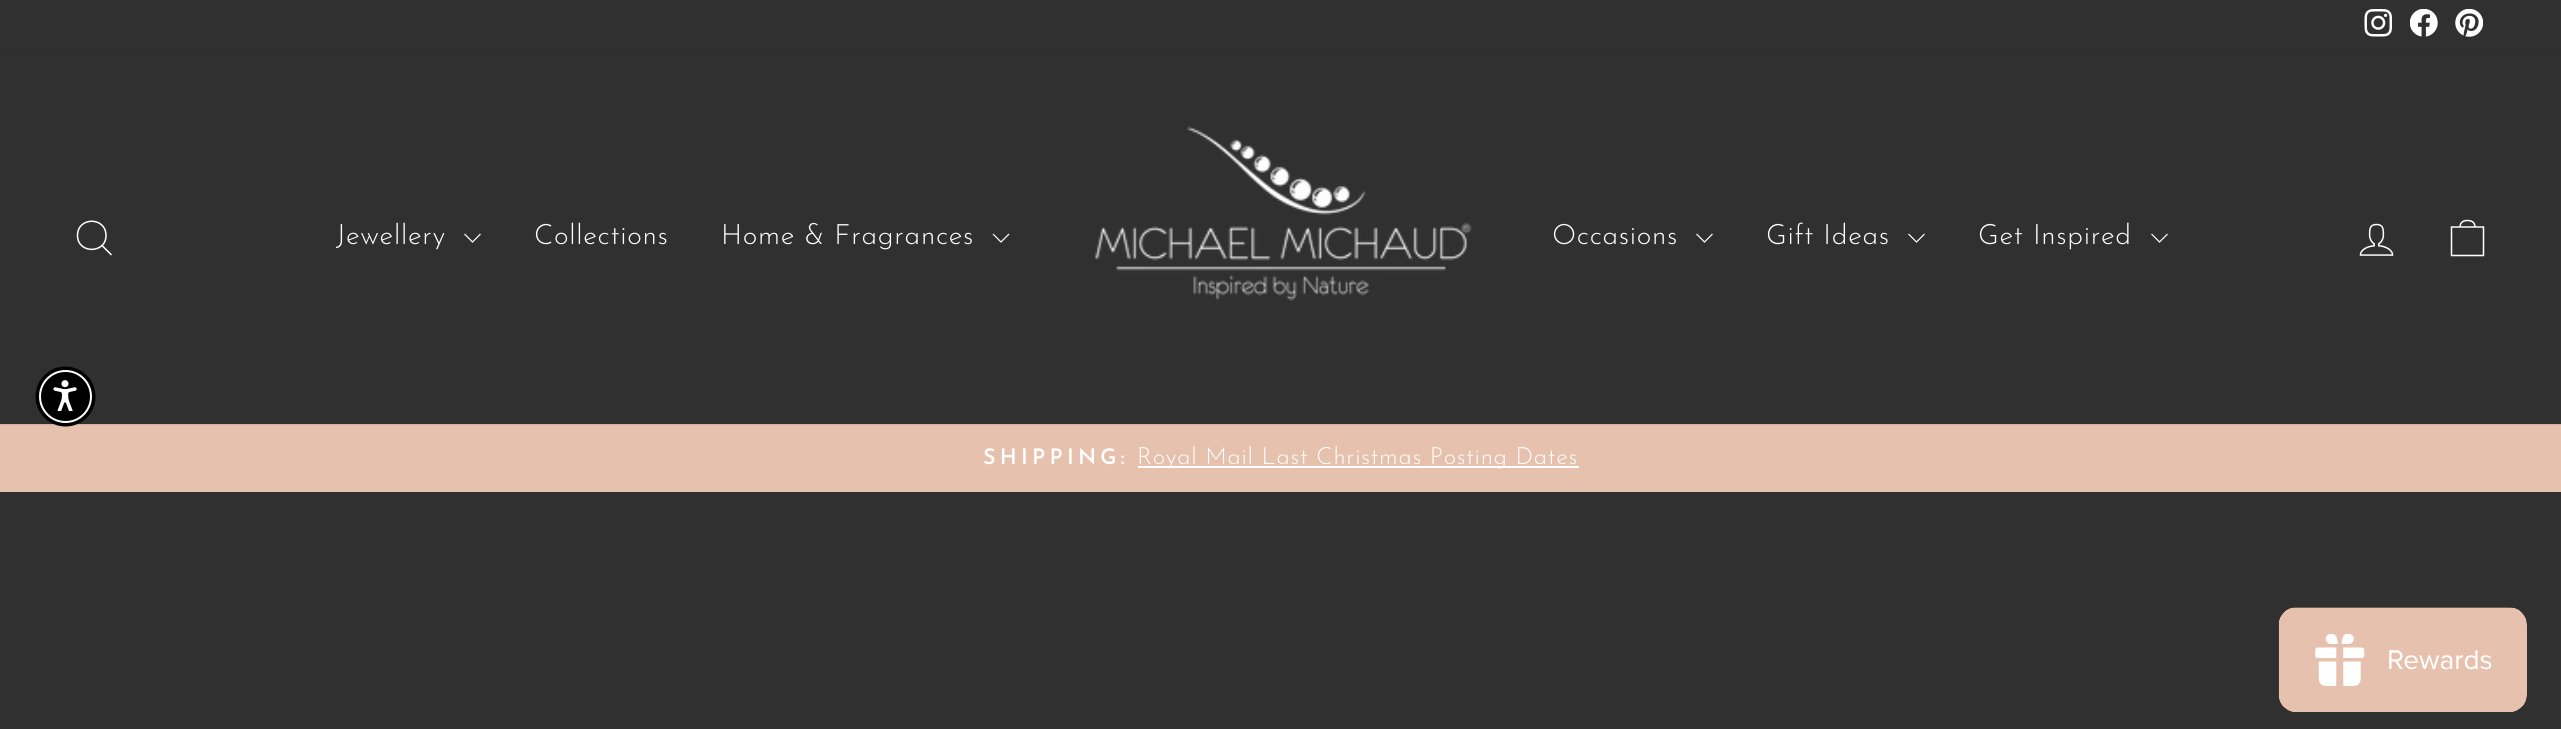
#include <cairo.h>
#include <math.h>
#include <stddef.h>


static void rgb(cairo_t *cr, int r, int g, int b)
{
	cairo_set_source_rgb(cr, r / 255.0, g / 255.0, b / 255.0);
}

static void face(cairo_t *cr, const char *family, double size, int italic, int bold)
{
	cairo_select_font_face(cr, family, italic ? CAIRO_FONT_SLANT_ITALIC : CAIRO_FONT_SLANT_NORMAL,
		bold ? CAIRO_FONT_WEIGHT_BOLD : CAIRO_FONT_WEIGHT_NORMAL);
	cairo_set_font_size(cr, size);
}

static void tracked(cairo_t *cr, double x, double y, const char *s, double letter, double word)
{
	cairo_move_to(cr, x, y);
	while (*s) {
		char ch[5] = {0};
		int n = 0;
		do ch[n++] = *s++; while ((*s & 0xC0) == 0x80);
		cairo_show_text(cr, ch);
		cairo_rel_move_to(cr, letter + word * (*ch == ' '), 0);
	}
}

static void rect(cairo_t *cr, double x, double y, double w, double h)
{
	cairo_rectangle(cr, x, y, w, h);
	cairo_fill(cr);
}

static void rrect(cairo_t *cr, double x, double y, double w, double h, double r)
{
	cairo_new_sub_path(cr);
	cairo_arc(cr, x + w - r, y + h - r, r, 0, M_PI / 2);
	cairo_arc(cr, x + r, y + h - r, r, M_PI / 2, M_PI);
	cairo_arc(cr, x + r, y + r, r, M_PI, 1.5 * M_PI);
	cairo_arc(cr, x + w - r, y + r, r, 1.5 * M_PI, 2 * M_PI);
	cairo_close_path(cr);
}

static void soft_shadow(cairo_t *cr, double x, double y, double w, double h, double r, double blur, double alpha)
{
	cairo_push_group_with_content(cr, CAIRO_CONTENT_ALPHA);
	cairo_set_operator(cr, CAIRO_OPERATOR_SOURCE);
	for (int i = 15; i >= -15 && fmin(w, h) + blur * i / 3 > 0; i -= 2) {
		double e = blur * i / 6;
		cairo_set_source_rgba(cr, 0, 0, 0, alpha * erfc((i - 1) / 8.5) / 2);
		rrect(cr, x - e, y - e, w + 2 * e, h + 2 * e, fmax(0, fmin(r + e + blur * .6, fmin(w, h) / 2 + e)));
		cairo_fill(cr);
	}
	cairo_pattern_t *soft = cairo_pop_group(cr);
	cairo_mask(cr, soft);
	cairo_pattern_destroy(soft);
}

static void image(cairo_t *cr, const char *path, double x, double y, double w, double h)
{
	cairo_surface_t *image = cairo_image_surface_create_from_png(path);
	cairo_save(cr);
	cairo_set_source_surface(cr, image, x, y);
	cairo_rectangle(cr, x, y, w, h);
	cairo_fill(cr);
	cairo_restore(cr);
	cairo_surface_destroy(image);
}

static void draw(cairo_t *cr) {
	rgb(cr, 48, 48, 48);
	cairo_paint(cr);
	rgb(cr, 230, 193, 173);
	rect(cr, 0, 424, 2561, 68);
	rgb(cr, 0, 0, 0);
	soft_shadow(cr, 0, 51, 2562, 373, 0, 1, 0.2);
	rgb(cr, 48, 48, 48);
	rect(cr, 0, 51, 2561, 373);
	rgb(cr, 0, 0, 0);
	cairo_arc(cr, 65.5, 396.5, 30, 0, 2 * M_PI);
	cairo_fill(cr);
	rgb(cr, 255, 255, 255);
	cairo_arc(cr, 65.5, 396.5, 26.5, 0, 2 * M_PI);
	cairo_fill(cr);
	rgb(cr, 0, 0, 0);
	cairo_arc(cr, 65.5, 396.5, 24.5, 0, 2 * M_PI);
	cairo_fill(cr);
	image(cr, "image0.png", 53, 380, 24, 31);
	image(cr, "image1.png", 2364, 9, 28, 28);
	image(cr, "image2.png", 2410, 9, 28, 28);
	image(cr, "image3.png", 2455, 9, 28, 28);
	cairo_new_path(cr);
	cairo_move_to(cr, 106, 235.5);
	cairo_curve_to(cr, 106, 254, 77.5, 254, 77.5, 235.5);
	cairo_curve_to(cr, 77.5, 216.5, 106, 216.5, 106, 235.5);
	cairo_close_path(cr);
	cairo_move_to(cr, 111.5, 255);
	cairo_line_to(cr, 102, 245.5);
	rgb(cr, 255, 255, 255);
	cairo_set_line_width(cr, 1.5);
	cairo_stroke(cr);
	face(cr, "Josefin Sans Light", 28, 0, 0);
	tracked(cr, 336, 244, "Jewellery", 0.7, 0);
	cairo_new_path(cr);
	cairo_move_to(cr, 464.5, 234);
	cairo_line_to(cr, 472.5, 242);
	cairo_line_to(cr, 480.5, 234);
	cairo_set_line_width(cr, 1.2);
	cairo_stroke(cr);
	tracked(cr, 534, 244, "Collections", 0.7, 0);
	tracked(cr, 721, 244, "Home & Fragrances", 0.7, 0);
	cairo_new_path(cr);
	cairo_move_to(cr, 993, 234);
	cairo_line_to(cr, 1001, 242);
	cairo_line_to(cr, 1009, 234);
	cairo_stroke(cr);
	image(cr, "image4.png", 1095, 126, 377, 175);
	tracked(cr, 1552, 244, "Occasions", 0.7, 0);
	cairo_new_path(cr);
	cairo_move_to(cr, 1696.5, 234);
	cairo_line_to(cr, 1704.5, 242);
	cairo_line_to(cr, 1712.5, 234);
	cairo_stroke(cr);
	tracked(cr, 1766, 244, "Gift Ideas", 0.7, 0);
	cairo_new_path(cr);
	cairo_move_to(cr, 1908.5, 234);
	cairo_line_to(cr, 1916.5, 242);
	cairo_line_to(cr, 1924.5, 234);
	cairo_stroke(cr);
	tracked(cr, 1978, 244, "Get Inspired", 0.7, 0);
	cairo_new_path(cr);
	cairo_move_to(cr, 2151.5, 234);
	cairo_line_to(cr, 2159.5, 242);
	cairo_line_to(cr, 2167.5, 234);
	cairo_stroke(cr);
	image(cr, "image5.png", 2359, 223, 35, 33);
	cairo_new_path(cr);
	cairo_move_to(cr, 2451.5, 227);
	cairo_line_to(cr, 2483.5, 227);
	cairo_line_to(cr, 2483.5, 255.5);
	cairo_line_to(cr, 2451.5, 255.5);
	cairo_close_path(cr);
	cairo_move_to(cr, 2460, 227.5);
	cairo_curve_to(cr, 2460, 222, 2463.5, 220.5, 2467.5, 220.5);
	cairo_curve_to(cr, 2471.5, 220.5, 2475, 222, 2475, 227.5);
	cairo_set_line_width(cr, 1.5);
	cairo_stroke(cr);
	face(cr, "Josefin Sans SemiBold", 21.5, 0, 0);
	tracked(cr, 983, 464, "SHIPPING:", 4.25, 0);
	rect(cr, 1138, 466, 441, 2);
	face(cr, "Josefin Sans Light", 23.75, 0, 0);
	tracked(cr, 1137, 464, "Royal Mail Last Christmas Posting Dates", 0.7, 0);
	image(cr, "image6.png", 2278, 607, 249, 105);
}

int main(void) {
	cairo_surface_t *surface = cairo_image_surface_create(CAIRO_FORMAT_RGB24, 2561, 729);
	cairo_t *cr = cairo_create(surface);
	cairo_font_options_t *options = cairo_font_options_create();
	cairo_font_options_set_hint_metrics(options, CAIRO_HINT_METRICS_OFF);
	cairo_font_options_set_hint_style(options, CAIRO_HINT_STYLE_NONE);
	cairo_set_font_options(cr, options);
	cairo_set_miter_limit(cr, 4);
	draw(cr);
	cairo_surface_write_to_png(surface, "render.png");
	cairo_font_options_destroy(options);
	cairo_destroy(cr);
	cairo_surface_destroy(surface);
	return 0;
}
